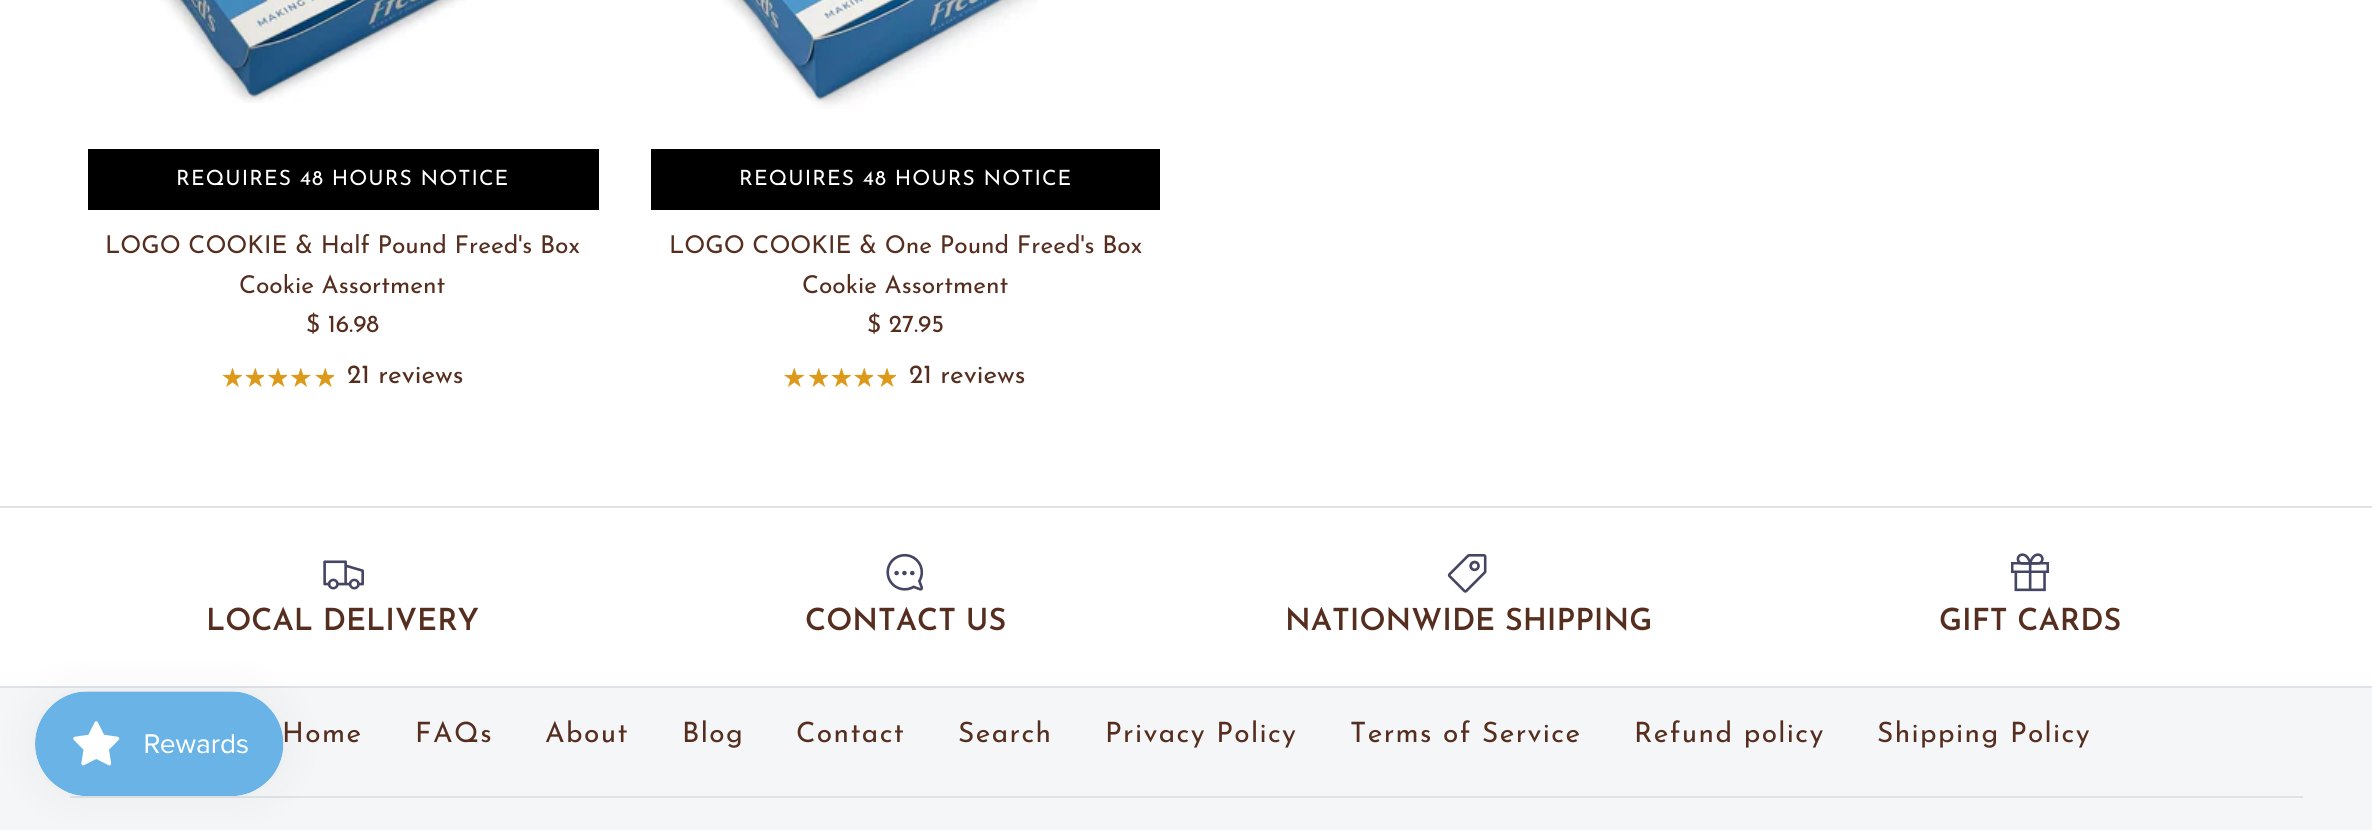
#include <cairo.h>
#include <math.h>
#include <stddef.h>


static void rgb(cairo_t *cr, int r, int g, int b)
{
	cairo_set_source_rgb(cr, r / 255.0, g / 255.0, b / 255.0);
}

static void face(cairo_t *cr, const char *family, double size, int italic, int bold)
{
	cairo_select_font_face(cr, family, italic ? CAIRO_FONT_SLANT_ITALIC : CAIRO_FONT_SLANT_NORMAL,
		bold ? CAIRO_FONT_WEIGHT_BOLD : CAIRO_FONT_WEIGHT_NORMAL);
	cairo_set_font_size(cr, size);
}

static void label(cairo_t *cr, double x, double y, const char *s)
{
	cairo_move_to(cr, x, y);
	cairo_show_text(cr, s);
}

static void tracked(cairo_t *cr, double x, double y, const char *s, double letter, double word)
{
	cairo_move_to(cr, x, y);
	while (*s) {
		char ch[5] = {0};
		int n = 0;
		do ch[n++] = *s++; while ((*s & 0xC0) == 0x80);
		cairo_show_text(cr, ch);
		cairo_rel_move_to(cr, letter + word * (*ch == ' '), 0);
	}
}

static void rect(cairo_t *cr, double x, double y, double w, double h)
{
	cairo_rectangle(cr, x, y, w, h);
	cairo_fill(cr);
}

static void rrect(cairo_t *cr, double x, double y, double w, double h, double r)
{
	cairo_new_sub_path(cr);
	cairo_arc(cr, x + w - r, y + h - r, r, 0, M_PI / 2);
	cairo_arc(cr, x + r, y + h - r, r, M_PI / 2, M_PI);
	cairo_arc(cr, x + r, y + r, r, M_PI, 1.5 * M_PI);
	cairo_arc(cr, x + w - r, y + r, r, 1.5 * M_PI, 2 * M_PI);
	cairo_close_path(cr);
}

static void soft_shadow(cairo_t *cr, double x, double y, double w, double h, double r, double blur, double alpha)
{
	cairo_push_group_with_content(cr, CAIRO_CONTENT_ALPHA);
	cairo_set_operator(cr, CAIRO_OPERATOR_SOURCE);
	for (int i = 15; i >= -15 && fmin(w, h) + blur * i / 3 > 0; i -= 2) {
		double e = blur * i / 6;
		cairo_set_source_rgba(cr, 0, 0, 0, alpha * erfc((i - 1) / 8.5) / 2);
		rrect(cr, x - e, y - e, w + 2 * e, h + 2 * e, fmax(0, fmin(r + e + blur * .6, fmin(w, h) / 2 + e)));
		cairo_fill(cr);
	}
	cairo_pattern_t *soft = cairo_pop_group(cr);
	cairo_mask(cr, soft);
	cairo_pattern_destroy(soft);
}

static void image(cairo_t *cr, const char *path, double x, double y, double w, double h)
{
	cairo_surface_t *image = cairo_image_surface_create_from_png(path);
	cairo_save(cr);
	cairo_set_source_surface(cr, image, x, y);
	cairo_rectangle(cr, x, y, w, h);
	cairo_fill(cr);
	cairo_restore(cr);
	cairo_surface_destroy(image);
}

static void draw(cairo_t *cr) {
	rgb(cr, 255, 255, 255);
	cairo_paint(cr);
	image(cr, "image0.png", 160, 0, 306, 103);
	rgb(cr, 0, 0, 0);
	rect(cr, 88, 149, 511, 61);
	face(cr, "Josefin Sans", 21, 0, 0);
	rgb(cr, 255, 255, 255);
	tracked(cr, 176, 185, "REQUIRES 48 HOURS NOTICE", 1.05, 0);
	face(cr, "Josefin Sans", 24.5, 0, 0);
	rgb(cr, 85, 46, 31);
	label(cr, 105, 253, "LOGO COOKIE & Half Pound Freed's Box");
	label(cr, 239, 293, "Cookie Assortment");
	label(cr, 306, 332, "$ 16.98");
	image(cr, "image1.png", 222, 368, 20, 19);
	image(cr, "image2.png", 245, 368, 19, 19);
	image(cr, "image3.png", 268, 368, 19, 19);
	image(cr, "image4.png", 291, 368, 20, 19);
	image(cr, "image2.png", 315, 368, 19, 19);
	image(cr, "image5.png", 222, 368, 20, 19);
	image(cr, "image6.png", 245, 368, 19, 19);
	image(cr, "image7.png", 268, 368, 19, 19);
	image(cr, "image8.png", 291, 368, 20, 19);
	image(cr, "image6.png", 315, 368, 19, 19);
	face(cr, "Josefin Sans", 26.25, 0, 0);
	label(cr, 347, 383, "21 reviews");
	image(cr, "image9.png", 723, 0, 315, 109);
	rgb(cr, 0, 0, 0);
	rect(cr, 651, 149, 509, 61);
	face(cr, "Josefin Sans", 21, 0, 0);
	rgb(cr, 255, 255, 255);
	tracked(cr, 739, 185, "REQUIRES 48 HOURS NOTICE", 1.05, 0);
	face(cr, "Josefin Sans", 24.5, 0, 0);
	rgb(cr, 85, 46, 31);
	label(cr, 669, 253, "LOGO COOKIE & One Pound Freed's Box");
	label(cr, 802, 293, "Cookie Assortment");
	label(cr, 867, 332, "$ 27.95");
	image(cr, "image10.png", 784, 368, 20, 19);
	image(cr, "image11.png", 809, 368, 19, 19);
	image(cr, "image1.png", 831, 368, 20, 19);
	image(cr, "image2.png", 854, 368, 19, 19);
	image(cr, "image3.png", 877, 368, 19, 19);
	image(cr, "image12.png", 784, 368, 21, 19);
	image(cr, "image13.png", 809, 368, 19, 19);
	image(cr, "image5.png", 831, 368, 20, 19);
	image(cr, "image6.png", 854, 368, 19, 19);
	image(cr, "image7.png", 877, 368, 19, 19);
	face(cr, "Josefin Sans", 26.25, 0, 0);
	label(cr, 909, 383, "21 reviews");
	rgb(cr, 244, 246, 248);
	rect(cr, 0, 688, 2372, 142);
	rgb(cr, 223, 227, 232);
	rect(cr, 0, 686, 2372, 2);
	rect(cr, 70, 796, 2233, 2);
	rgb(cr, 0, 0, 0);
	soft_shadow(cr, 35, 691, 249, 105, 52.5, 22, 0.05);
	image(cr, "image14.png", 35, 691, 249, 105);
	rgb(cr, 223, 227, 232);
	rect(cr, 0, 506, 2372, 2);
	image(cr, "image15.png", 323, 560, 41, 30);
	face(cr, "Josefin Sans SemiBold", 30.5, 0, 0);
	rgb(cr, 85, 46, 31);
	label(cr, 206, 630, "LOCAL DELIVERY");
	image(cr, "image16.png", 886, 553, 38, 38);
	label(cr, 805, 630, "CONTACT US");
	image(cr, "image17.png", 1447, 554, 40, 39);
	label(cr, 1285, 630, "NATIONWIDE SHIPPING");
	image(cr, "image18.png", 2011, 553, 38, 39);
	label(cr, 1939, 630, "GIFT CARDS");
	face(cr, "Josefin Sans", 28, 0, 0);
	tracked(cr, 282, 742, "Home", 1.4, 0);
	tracked(cr, 415, 742, "FAQs", 1.4, 0);
	tracked(cr, 545, 742, "About", 1.4, 0);
	tracked(cr, 682, 742, "Blog", 1.4, 0);
	tracked(cr, 796, 742, "Contact", 1.4, 0);
	tracked(cr, 958, 742, "Search", 1.4, 0);
	tracked(cr, 1105, 742, "Privacy Policy", 1.4, 0);
	tracked(cr, 1350, 742, "Terms of Service", 1.4, 0);
	tracked(cr, 1634, 742, "Refund policy", 1.4, 0);
	tracked(cr, 1877, 742, "Shipping Policy", 1.4, 0);
}

int main(void) {
	cairo_surface_t *surface = cairo_image_surface_create(CAIRO_FORMAT_RGB24, 2372, 830);
	cairo_t *cr = cairo_create(surface);
	cairo_font_options_t *options = cairo_font_options_create();
	cairo_font_options_set_hint_metrics(options, CAIRO_HINT_METRICS_OFF);
	cairo_font_options_set_hint_style(options, CAIRO_HINT_STYLE_NONE);
	cairo_set_font_options(cr, options);
	cairo_set_miter_limit(cr, 4);
	draw(cr);
	cairo_surface_write_to_png(surface, "render.png");
	cairo_font_options_destroy(options);
	cairo_destroy(cr);
	cairo_surface_destroy(surface);
	return 0;
}
